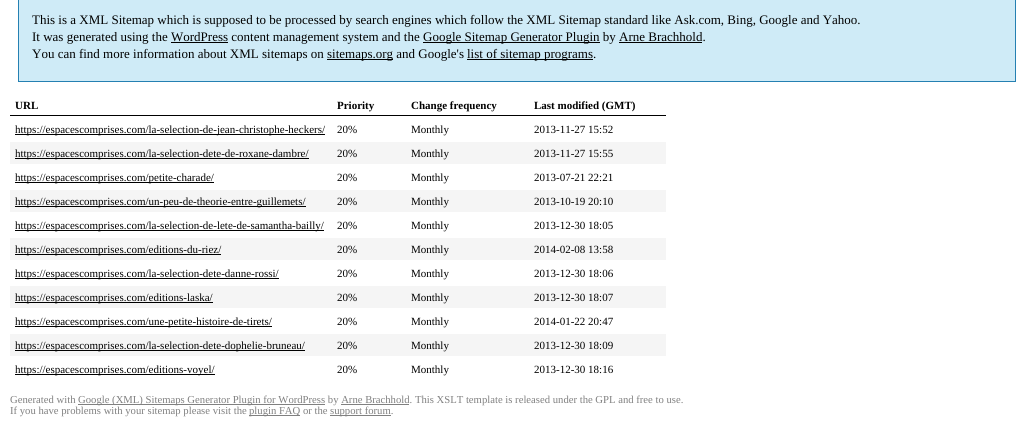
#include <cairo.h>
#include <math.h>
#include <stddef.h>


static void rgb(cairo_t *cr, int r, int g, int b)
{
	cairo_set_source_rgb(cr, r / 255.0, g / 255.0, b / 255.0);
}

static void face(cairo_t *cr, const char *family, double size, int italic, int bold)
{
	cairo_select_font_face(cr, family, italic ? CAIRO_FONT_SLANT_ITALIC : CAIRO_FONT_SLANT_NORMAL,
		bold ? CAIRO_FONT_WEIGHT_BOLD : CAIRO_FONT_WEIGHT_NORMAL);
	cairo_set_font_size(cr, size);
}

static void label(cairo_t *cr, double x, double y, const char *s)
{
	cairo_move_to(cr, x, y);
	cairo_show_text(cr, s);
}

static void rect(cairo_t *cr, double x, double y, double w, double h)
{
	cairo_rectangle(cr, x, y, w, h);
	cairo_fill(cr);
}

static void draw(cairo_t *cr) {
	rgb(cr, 255, 255, 255);
	cairo_paint(cr);
	rgb(cr, 207, 235, 247);
	cairo_rectangle(cr, 18.5, -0.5, 997, 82);
	cairo_fill_preserve(cr);
	rgb(cr, 37, 128, 178);
	cairo_set_line_width(cr, 1);
	cairo_stroke(cr);
	face(cr, "Liberation Serif", 13, 0, 0);
	rgb(cr, 0, 0, 0);
	label(cr, 32, 24, "This is a XML Sitemap which is supposed to be processed by search engines which follow the XML Sitemap standard like Ask.com, Bing, Google and Yahoo.");
	label(cr, 32, 41, "It was generated using the WordPress content management system and the");
	rect(cr, 423, 42, 177, 1);
	label(cr, 423, 41, "Google Sitemap Generator Plugin by Arne Brachhold.");
	rect(cr, 171, 42, 57, 1);
	rect(cr, 619, 42, 83, 1);
	label(cr, 32, 58, "You can find more information about XML sitemaps on");
	rect(cr, 327, 59, 66, 1);
	label(cr, 327, 58, "sitemaps.org and Google's");
	rect(cr, 467, 59, 126, 1);
	label(cr, 467, 58, "list of sitemap programs.");
	rect(cr, 10, 115, 656, 1);
	face(cr, "Liberation Serif", 11, 0, 1);
	label(cr, 15, 109, "URL");
	label(cr, 337, 109, "Priority");
	label(cr, 411, 109, "Change frequency");
	label(cr, 534, 109, "Last modified (GMT)");
	rect(cr, 15, 134, 310, 1);
	face(cr, "Liberation Serif", 11, 0, 0);
	label(cr, 15, 133, "https://espacescomprises.com/la-selection-de-jean-christophe-heckers/");
	label(cr, 337, 133, "20%");
	label(cr, 411, 133, "Monthly");
	label(cr, 534, 133, "2013-11-27 15:52");
	rgb(cr, 245, 245, 245);
	rect(cr, 10, 142, 656, 22);
	rgb(cr, 0, 0, 0);
	rect(cr, 15, 158, 294, 1);
	label(cr, 15, 157, "https://espacescomprises.com/la-selection-dete-de-roxane-dambre/");
	label(cr, 337, 157, "20%");
	label(cr, 411, 157, "Monthly");
	label(cr, 534, 157, "2013-11-27 15:55");
	rect(cr, 15, 182, 199, 1);
	label(cr, 15, 181, "https://espacescomprises.com/petite-charade/");
	label(cr, 337, 181, "20%");
	label(cr, 411, 181, "Monthly");
	label(cr, 534, 181, "2013-07-21 22:21");
	rgb(cr, 245, 245, 245);
	rect(cr, 10, 190, 656, 22);
	rgb(cr, 0, 0, 0);
	rect(cr, 15, 206, 291, 1);
	label(cr, 15, 205, "https://espacescomprises.com/un-peu-de-theorie-entre-guillemets/");
	label(cr, 337, 205, "20%");
	label(cr, 411, 205, "Monthly");
	label(cr, 534, 205, "2013-10-19 20:10");
	rect(cr, 15, 230, 309, 1);
	label(cr, 15, 229, "https://espacescomprises.com/la-selection-de-lete-de-samantha-bailly/");
	label(cr, 337, 229, "20%");
	label(cr, 411, 229, "Monthly");
	label(cr, 534, 229, "2013-12-30 18:05");
	rgb(cr, 245, 245, 245);
	rect(cr, 10, 238, 656, 22);
	rgb(cr, 0, 0, 0);
	rect(cr, 15, 254, 206, 1);
	label(cr, 15, 253, "https://espacescomprises.com/editions-du-riez/");
	label(cr, 337, 253, "20%");
	label(cr, 411, 253, "Monthly");
	label(cr, 534, 253, "2014-02-08 13:58");
	rect(cr, 15, 278, 264, 1);
	label(cr, 15, 277, "https://espacescomprises.com/la-selection-dete-danne-rossi/");
	label(cr, 337, 277, "20%");
	label(cr, 411, 277, "Monthly");
	label(cr, 534, 277, "2013-12-30 18:06");
	rgb(cr, 245, 245, 245);
	rect(cr, 10, 286, 656, 22);
	rgb(cr, 0, 0, 0);
	rect(cr, 15, 302, 198, 1);
	label(cr, 15, 301, "https://espacescomprises.com/editions-laska/");
	label(cr, 337, 301, "20%");
	label(cr, 411, 301, "Monthly");
	label(cr, 534, 301, "2013-12-30 18:07");
	rect(cr, 15, 326, 257, 1);
	label(cr, 15, 325, "https://espacescomprises.com/une-petite-histoire-de-tirets/");
	label(cr, 337, 325, "20%");
	label(cr, 411, 325, "Monthly");
	label(cr, 534, 325, "2014-01-22 20:47");
	rgb(cr, 245, 245, 245);
	rect(cr, 10, 334, 656, 22);
	rgb(cr, 0, 0, 0);
	rect(cr, 15, 350, 290, 1);
	label(cr, 15, 349, "https://espacescomprises.com/la-selection-dete-dophelie-bruneau/");
	label(cr, 337, 349, "20%");
	label(cr, 411, 349, "Monthly");
	label(cr, 534, 349, "2013-12-30 18:09");
	rect(cr, 15, 374, 200, 1);
	label(cr, 15, 373, "https://espacescomprises.com/editions-voyel/");
	label(cr, 337, 373, "20%");
	label(cr, 411, 373, "Monthly");
	label(cr, 534, 373, "2013-12-30 18:16");
	face(cr, "Liberation Serif", 10.67, 0, 0);
	rgb(cr, 128, 128, 128);
	label(cr, 10, 403, "Generated with");
	rect(cr, 78, 404, 247, 1);
	label(cr, 78, 403, "Google (XML) Sitemaps Generator Plugin for WordPress by Arne Brachhold. This XSLT template is released under the GPL and free to use.");
	rect(cr, 341, 404, 68, 1);
	label(cr, 10, 414, "If you have problems with your sitemap please visit the");
	rect(cr, 249, 415, 51, 1);
	label(cr, 249, 414, "plugin FAQ or the");
	rect(cr, 330, 415, 61, 1);
	label(cr, 330, 414, "support forum.");
}

int main(void) {
	cairo_surface_t *surface = cairo_image_surface_create(CAIRO_FORMAT_RGB24, 1034, 426);
	cairo_t *cr = cairo_create(surface);
	cairo_font_options_t *options = cairo_font_options_create();
	cairo_font_options_set_hint_metrics(options, CAIRO_HINT_METRICS_OFF);
	cairo_font_options_set_hint_style(options, CAIRO_HINT_STYLE_NONE);
	cairo_set_font_options(cr, options);
	cairo_set_miter_limit(cr, 4);
	draw(cr);
	cairo_surface_write_to_png(surface, "render.png");
	cairo_font_options_destroy(options);
	cairo_destroy(cr);
	cairo_surface_destroy(surface);
	return 0;
}
